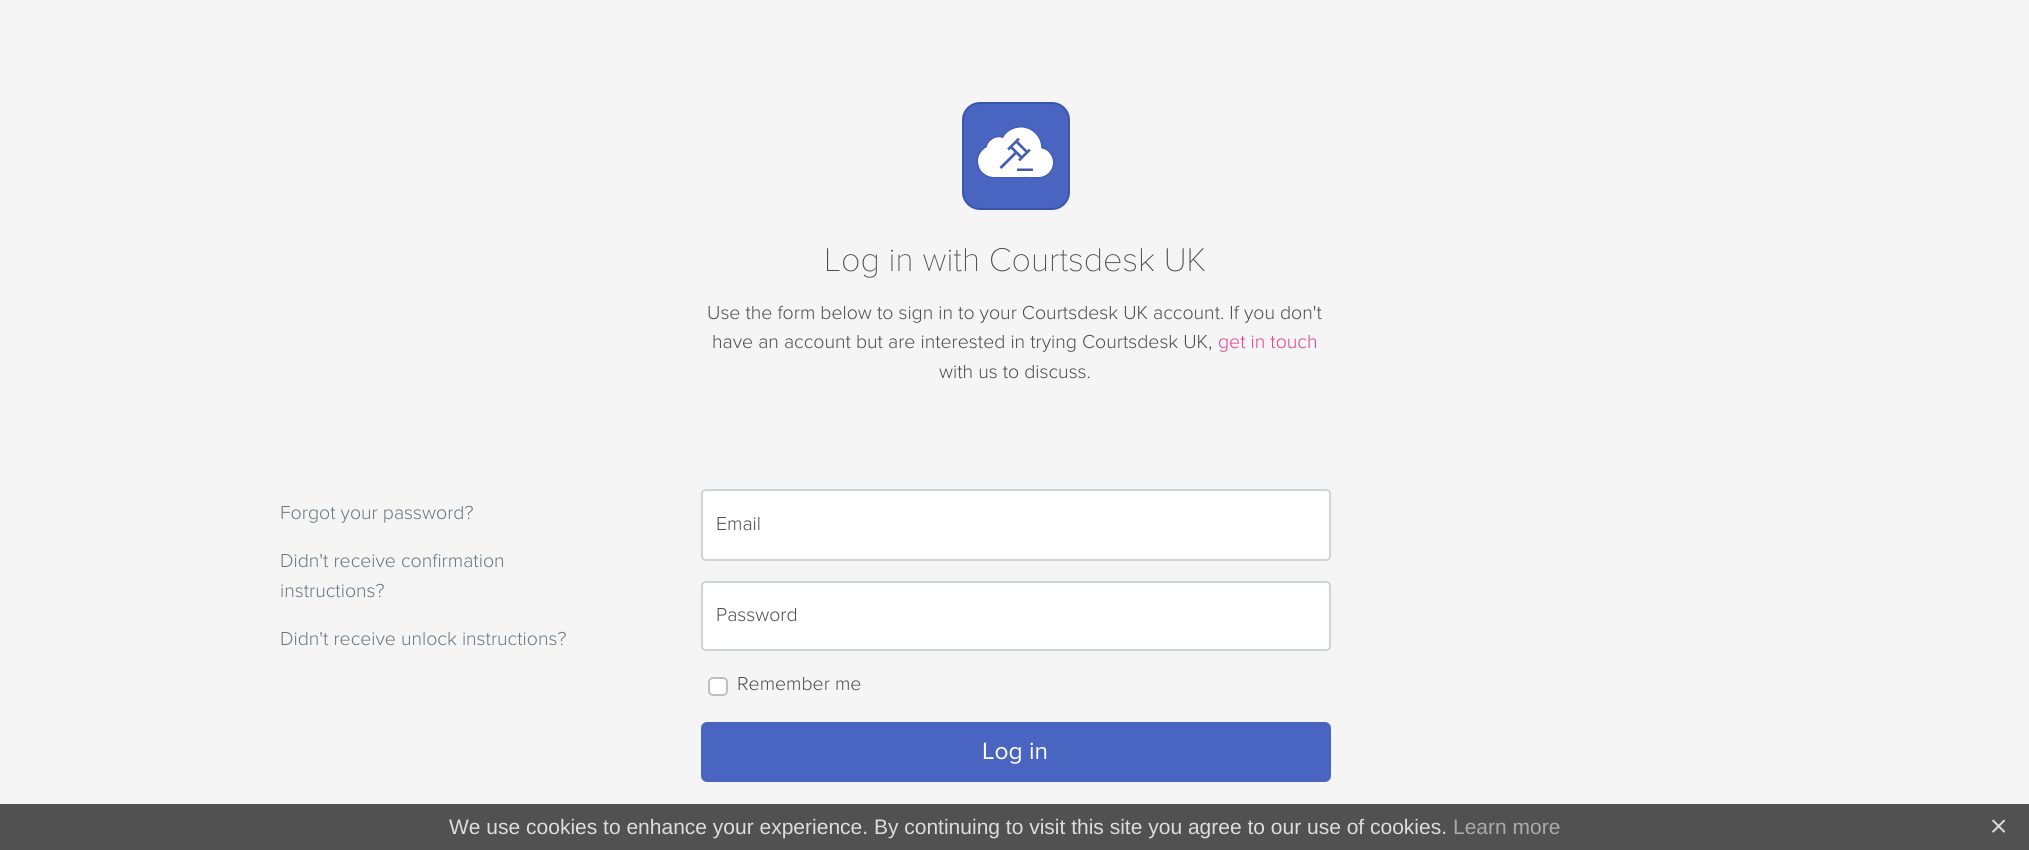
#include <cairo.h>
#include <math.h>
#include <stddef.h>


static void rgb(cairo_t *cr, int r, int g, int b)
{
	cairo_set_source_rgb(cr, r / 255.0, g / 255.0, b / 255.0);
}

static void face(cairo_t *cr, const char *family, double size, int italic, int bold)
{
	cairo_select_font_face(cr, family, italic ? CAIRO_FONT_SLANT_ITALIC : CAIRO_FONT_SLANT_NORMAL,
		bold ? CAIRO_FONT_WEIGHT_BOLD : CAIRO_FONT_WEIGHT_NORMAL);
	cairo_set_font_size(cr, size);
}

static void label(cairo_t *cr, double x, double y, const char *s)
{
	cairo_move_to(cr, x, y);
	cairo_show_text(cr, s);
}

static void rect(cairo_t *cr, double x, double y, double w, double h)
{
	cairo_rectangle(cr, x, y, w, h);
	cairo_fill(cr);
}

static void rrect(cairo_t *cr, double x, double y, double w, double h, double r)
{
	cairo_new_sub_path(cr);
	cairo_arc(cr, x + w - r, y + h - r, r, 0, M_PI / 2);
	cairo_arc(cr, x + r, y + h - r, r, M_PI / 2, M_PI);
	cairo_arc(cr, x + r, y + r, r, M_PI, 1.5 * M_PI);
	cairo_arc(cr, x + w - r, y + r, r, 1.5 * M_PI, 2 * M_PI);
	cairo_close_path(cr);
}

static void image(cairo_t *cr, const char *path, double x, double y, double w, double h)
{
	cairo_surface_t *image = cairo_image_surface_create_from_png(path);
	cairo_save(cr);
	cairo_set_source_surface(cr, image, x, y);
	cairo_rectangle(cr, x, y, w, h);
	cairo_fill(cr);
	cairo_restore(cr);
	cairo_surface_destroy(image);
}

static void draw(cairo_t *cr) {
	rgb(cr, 245, 245, 245);
	cairo_paint(cr);
	rgb(cr, 74, 101, 193);
	rrect(cr, 963, 103, 106, 106, 17);
	cairo_fill_preserve(cr);
	rgb(cr, 59, 85, 172);
	cairo_stroke(cr);
	image(cr, "image0.png", 976, 126, 79, 53);
	face(cr, "Proxima Nova Thin", 34.1, 0, 0);
	rgb(cr, 77, 77, 77);
	label(cr, 824, 271, "Log in with Courtsdesk UK");
	face(cr, "Proxima Nova Light", 19.5, 0, 0);
	label(cr, 707, 319, "Use the form below to sign in to your Courtsdesk UK account. If you don't");
	label(cr, 712, 348, "have an account but are interested in trying Courtsdesk UK,");
	rgb(cr, 232, 62, 140);
	label(cr, 1218, 348, "get in touch");
	rgb(cr, 77, 77, 77);
	label(cr, 939, 378, "with us to discuss.");
	rgb(cr, 108, 117, 125);
	label(cr, 280, 519, "Forgot your password?");
	label(cr, 280, 567, "Didn't receive confirmation");
	label(cr, 280, 597, "instructions?");
	label(cr, 280, 645, "Didn't receive unlock instructions?");
	rgb(cr, 255, 255, 255);
	rrect(cr, 702, 490, 628, 70, 4);
	cairo_fill_preserve(cr);
	rgb(cr, 206, 212, 218);
	cairo_stroke(cr);
	rgb(cr, 77, 77, 77);
	label(cr, 716, 530, "Email");
	rgb(cr, 255, 255, 255);
	rrect(cr, 702, 582, 628, 68, 4);
	cairo_fill_preserve(cr);
	rgb(cr, 206, 212, 218);
	cairo_stroke(cr);
	rgb(cr, 77, 77, 77);
	label(cr, 716, 621, "Password");
	rgb(cr, 255, 255, 255);
	rrect(cr, 708, 677, 20, 19, 5);
	cairo_fill(cr);
	rrect(cr, 709, 678, 18, 17, 4);
	cairo_set_source_rgba(cr, 0, 0, 0, 0.25);
	cairo_stroke(cr);
	rgb(cr, 77, 77, 77);
	label(cr, 737, 690, "Remember me");
	rgb(cr, 74, 101, 193);
	rrect(cr, 702, 723, 628, 58, 5);
	cairo_fill_preserve(cr);
	cairo_stroke(cr);
	face(cr, "Proxima Nova", 24.5, 0, 0);
	rgb(cr, 255, 255, 255);
	label(cr, 982, 759, "Log in");
	rgb(cr, 81, 81, 81);
	rect(cr, 0, 804, 2029, 46);
	face(cr, "Liberation Sans", 21, 0, 0);
	rgb(cr, 221, 221, 221);
	label(cr, 449, 834, "We use cookies to enhance your experience. By continuing to visit this site you agree to our use of cookies.");
	rgb(cr, 170, 170, 170);
	label(cr, 1453, 834, "Learn more");
	image(cr, "image1.png", 1992, 819, 14, 14);
}

int main(void) {
	cairo_surface_t *surface = cairo_image_surface_create(CAIRO_FORMAT_RGB24, 2029, 850);
	cairo_t *cr = cairo_create(surface);
	cairo_font_options_t *options = cairo_font_options_create();
	cairo_font_options_set_hint_metrics(options, CAIRO_HINT_METRICS_OFF);
	cairo_font_options_set_hint_style(options, CAIRO_HINT_STYLE_NONE);
	cairo_set_font_options(cr, options);
	cairo_set_miter_limit(cr, 4);
	draw(cr);
	cairo_surface_write_to_png(surface, "render.png");
	cairo_font_options_destroy(options);
	cairo_destroy(cr);
	cairo_surface_destroy(surface);
	return 0;
}
